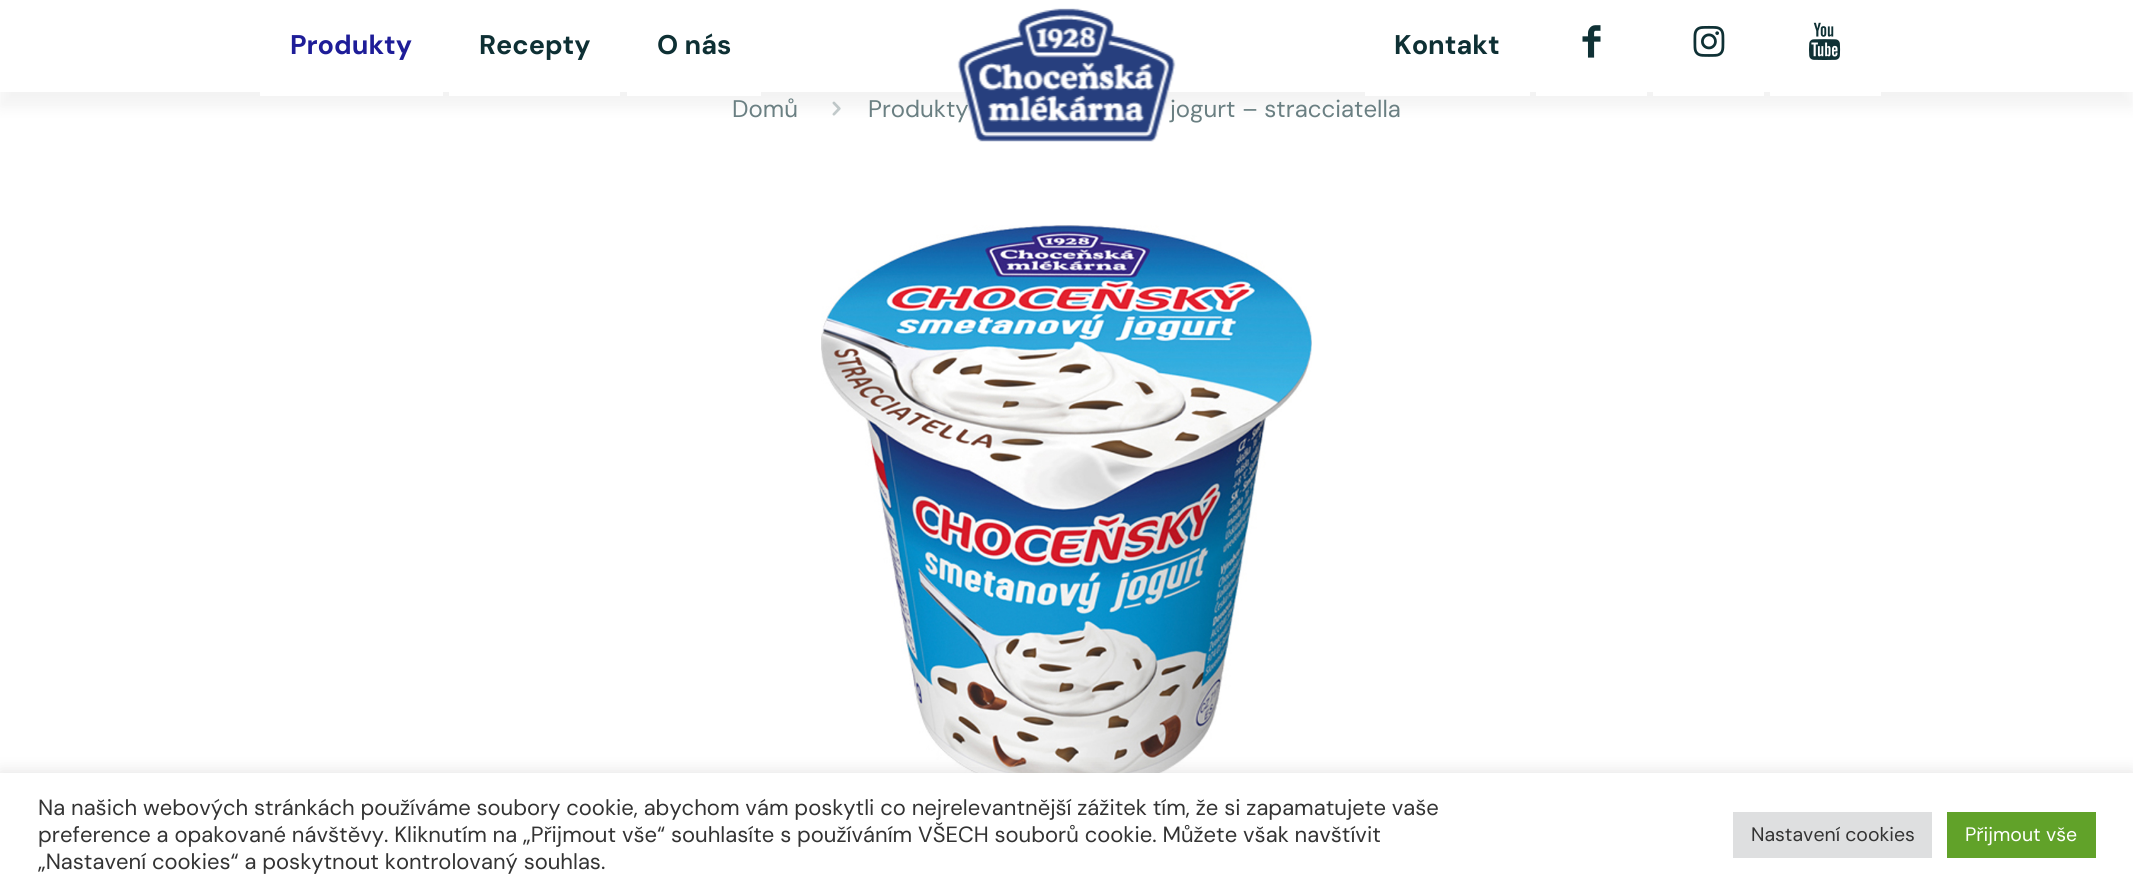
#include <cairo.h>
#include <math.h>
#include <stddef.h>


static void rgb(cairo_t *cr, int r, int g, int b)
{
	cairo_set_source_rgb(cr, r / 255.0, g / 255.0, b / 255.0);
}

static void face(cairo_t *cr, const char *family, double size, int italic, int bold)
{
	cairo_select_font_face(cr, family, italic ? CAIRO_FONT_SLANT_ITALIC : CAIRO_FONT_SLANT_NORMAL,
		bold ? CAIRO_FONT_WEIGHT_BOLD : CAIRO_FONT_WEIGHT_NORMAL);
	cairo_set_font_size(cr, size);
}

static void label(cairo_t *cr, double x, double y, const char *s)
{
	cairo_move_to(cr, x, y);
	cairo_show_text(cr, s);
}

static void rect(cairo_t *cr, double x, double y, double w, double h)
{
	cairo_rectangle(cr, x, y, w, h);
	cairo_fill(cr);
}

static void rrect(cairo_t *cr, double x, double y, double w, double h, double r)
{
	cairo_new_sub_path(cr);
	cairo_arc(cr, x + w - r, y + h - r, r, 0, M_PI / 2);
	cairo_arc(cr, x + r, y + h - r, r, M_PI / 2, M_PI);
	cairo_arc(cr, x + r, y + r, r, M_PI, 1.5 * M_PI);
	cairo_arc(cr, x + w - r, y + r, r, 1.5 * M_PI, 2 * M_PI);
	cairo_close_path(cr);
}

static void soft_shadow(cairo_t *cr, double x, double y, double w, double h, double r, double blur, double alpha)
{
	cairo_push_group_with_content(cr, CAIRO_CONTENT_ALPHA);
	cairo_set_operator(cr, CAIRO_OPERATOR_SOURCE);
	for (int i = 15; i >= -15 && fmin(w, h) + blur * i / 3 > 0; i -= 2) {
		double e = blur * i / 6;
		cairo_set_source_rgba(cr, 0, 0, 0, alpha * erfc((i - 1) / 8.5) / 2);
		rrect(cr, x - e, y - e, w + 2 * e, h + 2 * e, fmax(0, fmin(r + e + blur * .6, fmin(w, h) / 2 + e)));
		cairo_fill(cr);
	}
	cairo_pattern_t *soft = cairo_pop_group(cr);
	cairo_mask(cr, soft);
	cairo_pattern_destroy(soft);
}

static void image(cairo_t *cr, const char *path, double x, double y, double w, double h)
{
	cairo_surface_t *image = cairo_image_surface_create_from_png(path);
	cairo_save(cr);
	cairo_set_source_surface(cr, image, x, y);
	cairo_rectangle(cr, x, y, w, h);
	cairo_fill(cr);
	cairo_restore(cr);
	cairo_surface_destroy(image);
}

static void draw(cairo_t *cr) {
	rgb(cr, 255, 255, 255);
	cairo_paint(cr);
	image(cr, "image4.png", 832, 101, 9, 15);
	image(cr, "image5.png", 1002, 101, 9, 15);
	cairo_save(cr);
	cairo_set_fill_rule(cr, CAIRO_FILL_RULE_EVEN_ODD);
	cairo_new_path(cr);
	cairo_move_to(cr, 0, 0);
	cairo_line_to(cr, 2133, 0);
	cairo_line_to(cr, 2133, 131);
	cairo_line_to(cr, 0, 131);
	cairo_close_path(cr);
	cairo_move_to(cr, 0, 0);
	cairo_line_to(cr, 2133, 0);
	cairo_line_to(cr, 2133, 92);
	cairo_line_to(cr, 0, 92);
	cairo_close_path(cr);
	cairo_clip(cr);
	rgb(cr, 0, 0, 0);
	soft_shadow(cr, 0, 15, 2133, 92, 0, 7.5, 0.05);
	cairo_restore(cr);
	cairo_set_source_rgba(cr, 1, 1, 1, 0.97);
	rect(cr, 0, 91, 2133, 1);
	face(cr, "DM Sans", 24, 0, 0);
	rgb(cr, 106, 127, 130);
	label(cr, 868, 117, "Produkty");
	label(cr, 1170, 117, "jogurt – stracciatella");
	image(cr, "image0.png", 957, 8, 219, 134);
	face(cr, "DM Sans", 27, 0, 1);
	rgb(cr, 30, 29, 152);
	label(cr, 290, 54, "Produkty");
	rgb(cr, 255, 255, 255);
	rect(cr, 260, 92, 183, 4);
	rgb(cr, 14, 48, 52);
	label(cr, 479, 54, "Recepty");
	rgb(cr, 255, 255, 255);
	rect(cr, 449, 92, 171, 4);
	rgb(cr, 14, 48, 52);
	label(cr, 657, 54, "O nás");
	rgb(cr, 255, 255, 255);
	rect(cr, 627, 92, 134, 4);
	rgb(cr, 14, 48, 52);
	label(cr, 1394, 54, "Kontakt");
	rgb(cr, 255, 255, 255);
	rect(cr, 1365, 92, 165, 4);
	image(cr, "image1.png", 1582, 25, 19, 33);
	rect(cr, 1536, 92, 111, 4);
	image(cr, "image2.png", 1693, 25, 32, 32);
	rect(cr, 1653, 92, 111, 4);
	image(cr, "image3.png", 1809, 22, 32, 38);
	rect(cr, 1770, 92, 111, 4);
	face(cr, "DM Sans", 24, 0, 0);
	rgb(cr, 106, 127, 130);
	label(cr, 732, 117, "Domů");
	image(cr, "image6.png", 821, 225, 491, 548);
	rgb(cr, 172, 171, 171);
	soft_shadow(cr, 0, 771, 2133, 123, 0, 7.5, 0.3);
	rgb(cr, 255, 255, 255);
	rect(cr, 0, 773, 2133, 122);
	face(cr, "DM Sans", 22, 0, 0);
	rgb(cr, 51, 51, 51);
	label(cr, 38, 815, "Na našich webových stránkách používáme soubory cookie, abychom vám poskytli co nejrelevantnější zážitek tím, že si zapamatujete vaše");
	label(cr, 38, 842, "preference a opakované návštěvy. Kliknutím na „Přijmout vše“ souhlasíte s používáním VŠECH souborů cookie. Můžete však navštívit");
	label(cr, 38, 869, "„Nastavení cookies“ a poskytnout kontrolovaný souhlas.");
	rgb(cr, 222, 223, 224);
	rect(cr, 1733, 812, 199, 46);
	face(cr, "DM Sans", 19.5, 0, 0);
	rgb(cr, 51, 51, 51);
	label(cr, 1751, 841, "Nastavení cookies");
	rgb(cr, 97, 162, 41);
	rect(cr, 1947, 812, 149, 46);
	rgb(cr, 255, 255, 255);
	label(cr, 1965, 841, "Přijmout vše");
}

int main(void) {
	cairo_surface_t *surface = cairo_image_surface_create(CAIRO_FORMAT_RGB24, 2133, 895);
	cairo_t *cr = cairo_create(surface);
	cairo_font_options_t *options = cairo_font_options_create();
	cairo_font_options_set_hint_metrics(options, CAIRO_HINT_METRICS_OFF);
	cairo_font_options_set_hint_style(options, CAIRO_HINT_STYLE_NONE);
	cairo_set_font_options(cr, options);
	cairo_set_miter_limit(cr, 4);
	draw(cr);
	cairo_surface_write_to_png(surface, "render.png");
	cairo_font_options_destroy(options);
	cairo_destroy(cr);
	cairo_surface_destroy(surface);
	return 0;
}
